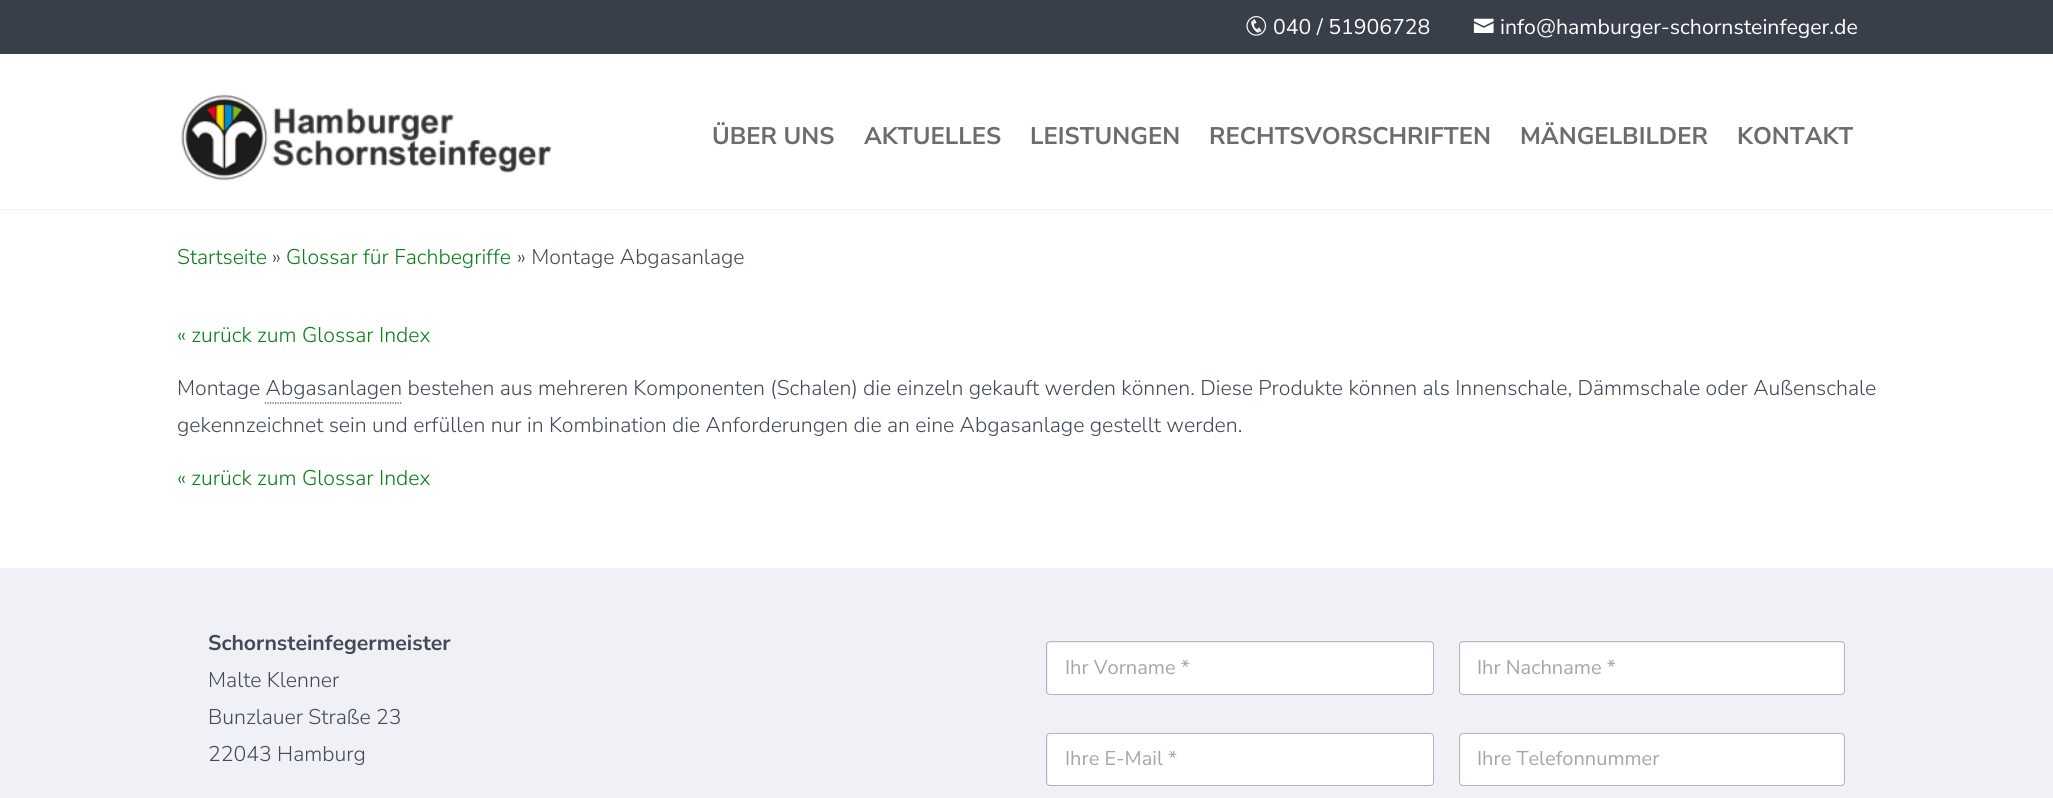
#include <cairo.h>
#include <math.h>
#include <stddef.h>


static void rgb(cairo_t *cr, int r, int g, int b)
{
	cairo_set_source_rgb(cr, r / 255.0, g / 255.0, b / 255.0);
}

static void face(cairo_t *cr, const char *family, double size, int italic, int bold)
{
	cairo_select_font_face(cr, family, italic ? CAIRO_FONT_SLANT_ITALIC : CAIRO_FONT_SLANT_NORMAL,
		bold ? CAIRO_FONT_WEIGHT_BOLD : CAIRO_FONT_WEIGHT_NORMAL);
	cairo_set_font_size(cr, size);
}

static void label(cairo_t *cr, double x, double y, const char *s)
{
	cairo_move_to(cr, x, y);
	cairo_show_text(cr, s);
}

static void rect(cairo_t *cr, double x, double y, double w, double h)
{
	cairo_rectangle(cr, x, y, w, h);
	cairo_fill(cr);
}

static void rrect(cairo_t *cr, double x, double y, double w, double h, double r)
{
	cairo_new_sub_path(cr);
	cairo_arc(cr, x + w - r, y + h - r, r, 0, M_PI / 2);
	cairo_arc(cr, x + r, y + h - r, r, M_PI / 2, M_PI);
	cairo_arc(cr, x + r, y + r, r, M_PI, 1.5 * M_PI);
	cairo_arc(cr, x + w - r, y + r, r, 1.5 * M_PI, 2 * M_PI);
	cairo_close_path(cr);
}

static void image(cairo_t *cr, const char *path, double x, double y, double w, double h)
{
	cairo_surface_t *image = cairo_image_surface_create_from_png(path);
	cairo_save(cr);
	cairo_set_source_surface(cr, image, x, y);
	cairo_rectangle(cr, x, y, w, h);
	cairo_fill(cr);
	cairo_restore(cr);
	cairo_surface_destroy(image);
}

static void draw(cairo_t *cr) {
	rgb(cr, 255, 255, 255);
	cairo_paint(cr);
	rgb(cr, 240, 241, 246);
	rect(cr, 0, 209, 2053, 1);
	rgb(cr, 56, 63, 75);
	rect(cr, 0, 0, 2053, 54);
	image(cr, "image0.png", 1246, 16, 21, 20);
	face(cr, "Nunito Sans", 21.25, 0, 0);
	rgb(cr, 255, 255, 255);
	label(cr, 1273, 34, "040 / 51906728");
	image(cr, "image1.png", 1473, 18, 21, 15);
	label(cr, 1500, 34, "info@hamburger-schornsteinfeger.de");
	image(cr, "image2.png", 181, 94, 371, 87);
	face(cr, "Nunito Sans", 24, 0, 1);
	rgb(cr, 108, 108, 108);
	label(cr, 712, 144, "ÜBER UNS");
	label(cr, 864, 144, "AKTUELLES");
	label(cr, 1030, 144, "LEISTUNGEN");
	label(cr, 1209, 144, "RECHTSVORSCHRIFTEN");
	label(cr, 1520, 144, "MÄNGELBILDER");
	label(cr, 1737, 144, "KONTAKT");
	face(cr, "Nunito Sans Light", 21.25, 0, 0);
	rgb(cr, 10, 127, 25);
	label(cr, 177, 264, "Startseite");
	rgb(cr, 66, 74, 89);
	label(cr, 272, 264, "»");
	rgb(cr, 10, 127, 25);
	label(cr, 286, 264, "Glossar für Fachbegriffe");
	rgb(cr, 66, 74, 89);
	label(cr, 517, 264, "» Montage Abgasanlage");
	rgb(cr, 10, 127, 25);
	label(cr, 177, 342, "« zurück zum Glossar Index");
	rgb(cr, 66, 74, 89);
	label(cr, 177, 395, "Montage Abgasanlagen bestehen aus mehreren Komponenten (Schalen) die einzeln gekauft werden können. Diese Produkte können als Innenschale, Dämmschale oder Außenschale");
	cairo_new_path(cr);
	cairo_move_to(cr, 265, 403);
	cairo_line_to(cr, 402.5, 403);
	cairo_set_line_width(cr, 1.2);
	cairo_set_dash(cr, (double[]){1.25, 1.25}, 2, 0);
	cairo_stroke(cr);
	label(cr, 177, 432, "gekennzeichnet sein und erfüllen nur in Kombination die Anforderungen die an eine Abgasanlage gestellt werden.");
	rgb(cr, 10, 127, 25);
	label(cr, 177, 485, "« zurück zum Glossar Index");
	rgb(cr, 240, 241, 246);
	rect(cr, 0, 568, 2053, 230);
	face(cr, "Nunito Sans", 21.25, 0, 1);
	rgb(cr, 66, 74, 89);
	label(cr, 208, 650, "Schornsteinfegermeister");
	face(cr, "Nunito Sans Light", 21.25, 0, 0);
	label(cr, 208, 687, "Malte Klenner");
	label(cr, 208, 724, "Bunzlauer Straße 23");
	label(cr, 208, 761, "22043 Hamburg");
	rgb(cr, 255, 255, 255);
	rrect(cr, 1048, 643, 385, 51, 2.5);
	cairo_fill(cr);
	rrect(cr, 1046.5, 641.5, 387, 53, 3.5);
	rgb(cr, 180, 181, 185);
	cairo_set_line_width(cr, 1);
	cairo_set_dash(cr, NULL, 0, 0);
	cairo_stroke(cr);
	face(cr, "Nunito Sans", 20, 0, 0);
	rgb(cr, 166, 166, 166);
	label(cr, 1065, 674, "Ihr Vorname *");
	rgb(cr, 255, 255, 255);
	rrect(cr, 1460, 643, 384, 51, 2.5);
	cairo_fill(cr);
	rrect(cr, 1459.5, 641.5, 385, 53, 3.5);
	rgb(cr, 180, 181, 185);
	cairo_stroke(cr);
	rgb(cr, 166, 166, 166);
	label(cr, 1477, 674, "Ihr Nachname *");
	rgb(cr, 255, 255, 255);
	rrect(cr, 1048, 734, 385, 51, 2.5);
	cairo_fill(cr);
	rrect(cr, 1046.5, 733.5, 387, 52, 3.5);
	rgb(cr, 180, 181, 185);
	cairo_stroke(cr);
	rgb(cr, 166, 166, 166);
	label(cr, 1065, 765, "Ihre E-Mail *");
	rgb(cr, 255, 255, 255);
	rrect(cr, 1460, 734, 384, 51, 2.5);
	cairo_fill(cr);
	rrect(cr, 1459.5, 733.5, 385, 52, 3.5);
	rgb(cr, 180, 181, 185);
	cairo_stroke(cr);
	rgb(cr, 166, 166, 166);
	label(cr, 1477, 765, "Ihre Telefonnummer");
}

int main(void) {
	cairo_surface_t *surface = cairo_image_surface_create(CAIRO_FORMAT_RGB24, 2053, 798);
	cairo_t *cr = cairo_create(surface);
	cairo_font_options_t *options = cairo_font_options_create();
	cairo_font_options_set_hint_metrics(options, CAIRO_HINT_METRICS_OFF);
	cairo_font_options_set_hint_style(options, CAIRO_HINT_STYLE_NONE);
	cairo_set_font_options(cr, options);
	cairo_set_miter_limit(cr, 4);
	draw(cr);
	cairo_surface_write_to_png(surface, "render.png");
	cairo_font_options_destroy(options);
	cairo_destroy(cr);
	cairo_surface_destroy(surface);
	return 0;
}
